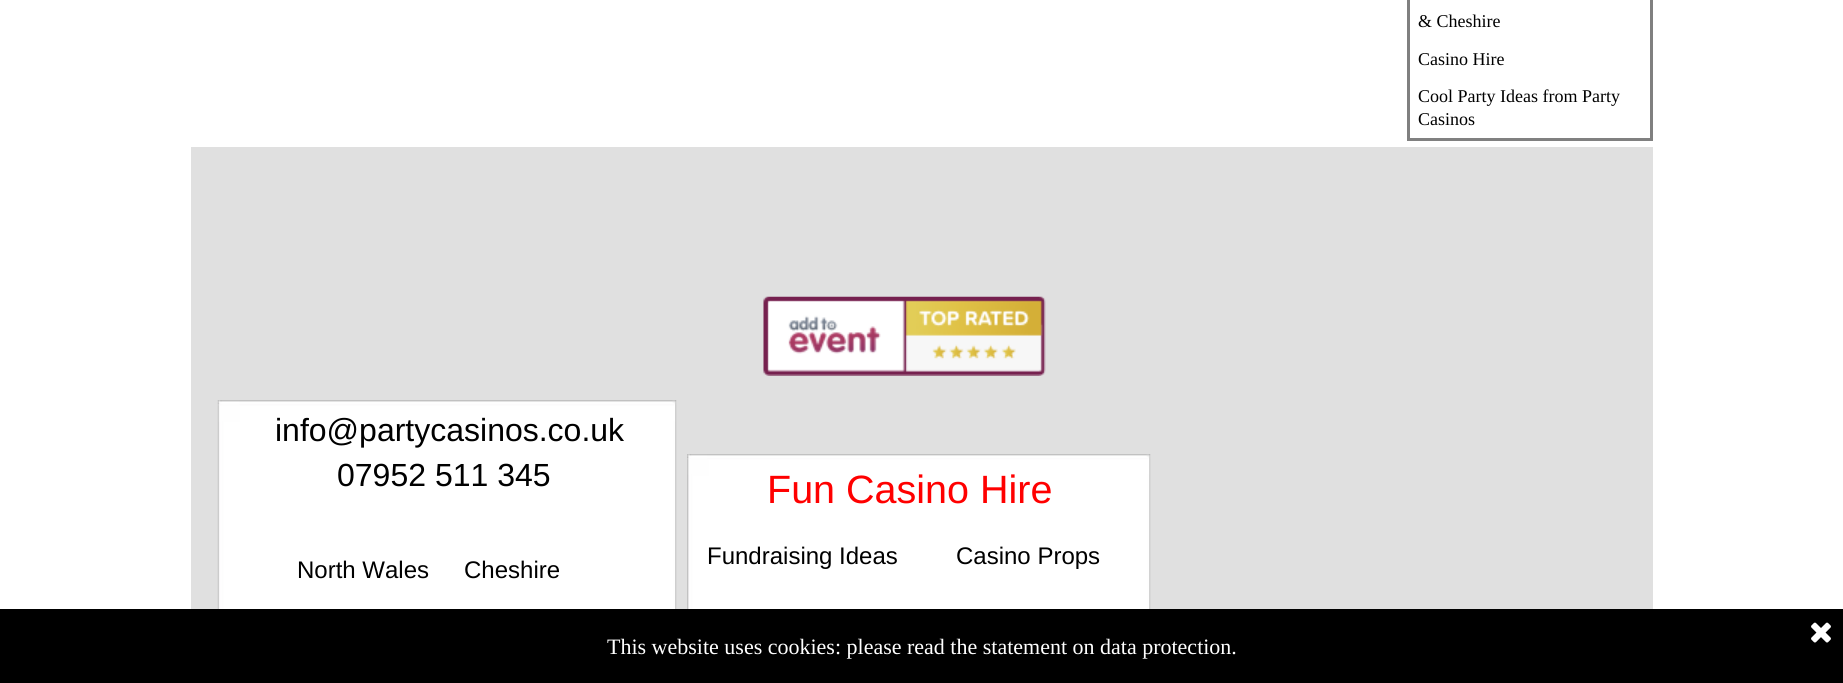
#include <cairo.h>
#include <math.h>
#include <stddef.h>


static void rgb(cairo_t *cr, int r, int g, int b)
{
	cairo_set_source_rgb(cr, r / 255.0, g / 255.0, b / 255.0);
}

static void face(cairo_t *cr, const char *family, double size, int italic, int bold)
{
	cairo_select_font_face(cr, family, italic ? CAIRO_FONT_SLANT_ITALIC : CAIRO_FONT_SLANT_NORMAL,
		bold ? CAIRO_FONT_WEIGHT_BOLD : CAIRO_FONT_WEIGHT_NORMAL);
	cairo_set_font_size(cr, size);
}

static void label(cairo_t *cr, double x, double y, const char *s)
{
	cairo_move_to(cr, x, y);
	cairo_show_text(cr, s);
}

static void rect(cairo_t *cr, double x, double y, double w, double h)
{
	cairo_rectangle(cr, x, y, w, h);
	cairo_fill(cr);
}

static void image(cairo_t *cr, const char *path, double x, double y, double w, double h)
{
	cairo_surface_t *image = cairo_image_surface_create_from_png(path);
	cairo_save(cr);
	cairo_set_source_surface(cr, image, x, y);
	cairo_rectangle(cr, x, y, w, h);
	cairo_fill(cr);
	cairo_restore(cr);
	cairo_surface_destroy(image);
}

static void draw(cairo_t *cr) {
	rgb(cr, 255, 255, 255);
	cairo_paint(cr);
	cairo_rectangle(cr, 1408.5, -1.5, 243, 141);
	rgb(cr, 128, 128, 128);
	cairo_set_line_width(cr, 3);
	cairo_stroke(cr);
	face(cr, "Liberation Serif", 18, 0, 0);
	rgb(cr, 0, 0, 0);
	label(cr, 1418, 27, "& Cheshire");
	label(cr, 1418, 65, "Casino Hire");
	label(cr, 1418, 102, "Cool Party Ideas from Party");
	label(cr, 1418, 125, "Casinos");
	rgb(cr, 224, 224, 224);
	rect(cr, 191, 147, 1462, 462);
	image(cr, "image0.png", 763, 296, 283, 80);
	image(cr, "image1.png", 217, 400, 460, 209);
	face(cr, "Liberation Sans", 32, 0, 0);
	rgb(cr, 0, 0, 0);
	label(cr, 275, 441, "info@partycasinos.co.uk");
	label(cr, 337, 486, "07952 511 345");
	image(cr, "image2.png", 687, 454, 464, 155);
	face(cr, "Liberation Sans", 39.5, 0, 0);
	rgb(cr, 255, 0, 0);
	label(cr, 767, 503, "Fun Casino Hire");
	face(cr, "Liberation Sans", 24, 0, 0);
	rgb(cr, 0, 0, 0);
	label(cr, 297, 578, "North Wales");
	label(cr, 464, 578, "Cheshire");
	label(cr, 707, 564, "Fundraising Ideas");
	label(cr, 956, 564, "Casino Props");
	rect(cr, 0, 609, 1843, 74);
	image(cr, "image3.png", 1811, 622, 20, 21);
	face(cr, "Liberation Serif", 22, 0, 0);
	rgb(cr, 255, 255, 255);
	label(cr, 607, 654, "This website uses cookies: please read the statement on data protection.");
}

int main(void) {
	cairo_surface_t *surface = cairo_image_surface_create(CAIRO_FORMAT_RGB24, 1843, 683);
	cairo_t *cr = cairo_create(surface);
	cairo_font_options_t *options = cairo_font_options_create();
	cairo_font_options_set_hint_metrics(options, CAIRO_HINT_METRICS_OFF);
	cairo_font_options_set_hint_style(options, CAIRO_HINT_STYLE_NONE);
	cairo_set_font_options(cr, options);
	cairo_set_miter_limit(cr, 4);
	draw(cr);
	cairo_surface_write_to_png(surface, "render.png");
	cairo_font_options_destroy(options);
	cairo_destroy(cr);
	cairo_surface_destroy(surface);
	return 0;
}
